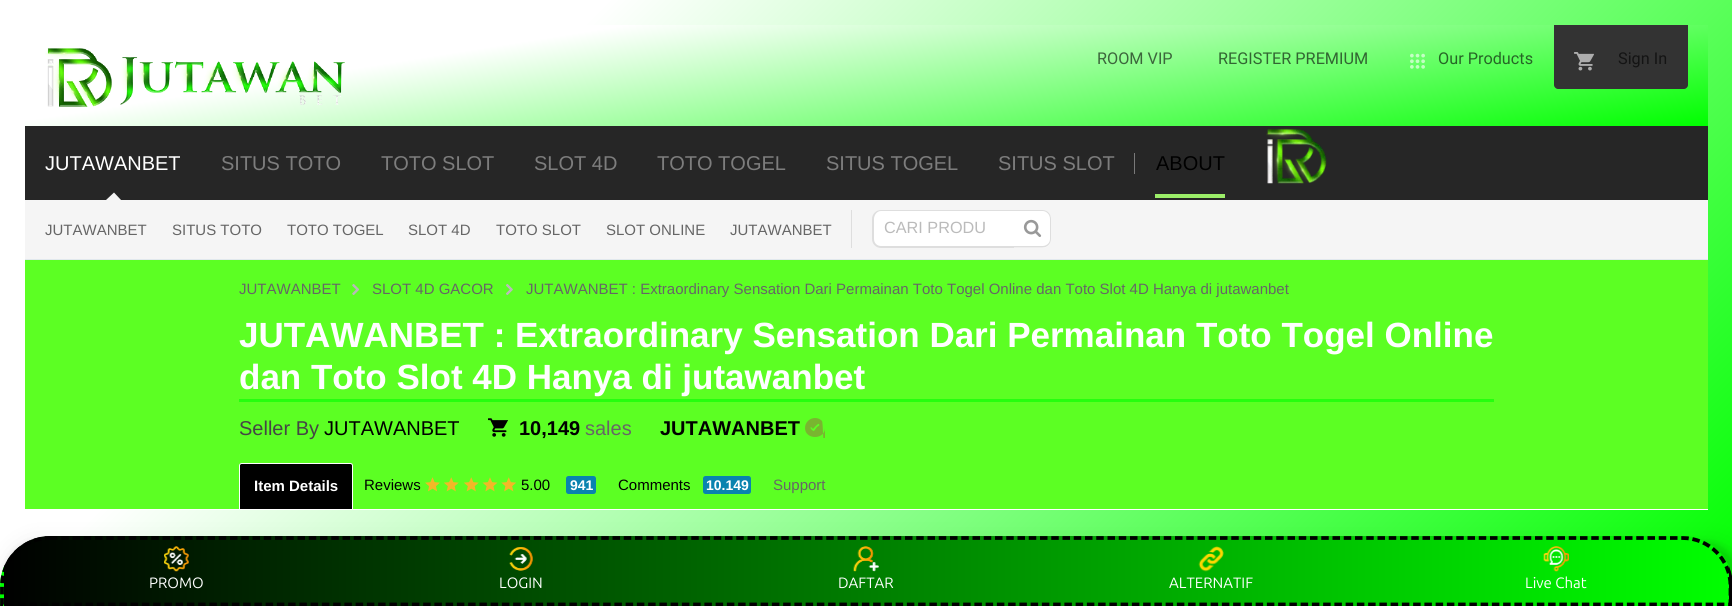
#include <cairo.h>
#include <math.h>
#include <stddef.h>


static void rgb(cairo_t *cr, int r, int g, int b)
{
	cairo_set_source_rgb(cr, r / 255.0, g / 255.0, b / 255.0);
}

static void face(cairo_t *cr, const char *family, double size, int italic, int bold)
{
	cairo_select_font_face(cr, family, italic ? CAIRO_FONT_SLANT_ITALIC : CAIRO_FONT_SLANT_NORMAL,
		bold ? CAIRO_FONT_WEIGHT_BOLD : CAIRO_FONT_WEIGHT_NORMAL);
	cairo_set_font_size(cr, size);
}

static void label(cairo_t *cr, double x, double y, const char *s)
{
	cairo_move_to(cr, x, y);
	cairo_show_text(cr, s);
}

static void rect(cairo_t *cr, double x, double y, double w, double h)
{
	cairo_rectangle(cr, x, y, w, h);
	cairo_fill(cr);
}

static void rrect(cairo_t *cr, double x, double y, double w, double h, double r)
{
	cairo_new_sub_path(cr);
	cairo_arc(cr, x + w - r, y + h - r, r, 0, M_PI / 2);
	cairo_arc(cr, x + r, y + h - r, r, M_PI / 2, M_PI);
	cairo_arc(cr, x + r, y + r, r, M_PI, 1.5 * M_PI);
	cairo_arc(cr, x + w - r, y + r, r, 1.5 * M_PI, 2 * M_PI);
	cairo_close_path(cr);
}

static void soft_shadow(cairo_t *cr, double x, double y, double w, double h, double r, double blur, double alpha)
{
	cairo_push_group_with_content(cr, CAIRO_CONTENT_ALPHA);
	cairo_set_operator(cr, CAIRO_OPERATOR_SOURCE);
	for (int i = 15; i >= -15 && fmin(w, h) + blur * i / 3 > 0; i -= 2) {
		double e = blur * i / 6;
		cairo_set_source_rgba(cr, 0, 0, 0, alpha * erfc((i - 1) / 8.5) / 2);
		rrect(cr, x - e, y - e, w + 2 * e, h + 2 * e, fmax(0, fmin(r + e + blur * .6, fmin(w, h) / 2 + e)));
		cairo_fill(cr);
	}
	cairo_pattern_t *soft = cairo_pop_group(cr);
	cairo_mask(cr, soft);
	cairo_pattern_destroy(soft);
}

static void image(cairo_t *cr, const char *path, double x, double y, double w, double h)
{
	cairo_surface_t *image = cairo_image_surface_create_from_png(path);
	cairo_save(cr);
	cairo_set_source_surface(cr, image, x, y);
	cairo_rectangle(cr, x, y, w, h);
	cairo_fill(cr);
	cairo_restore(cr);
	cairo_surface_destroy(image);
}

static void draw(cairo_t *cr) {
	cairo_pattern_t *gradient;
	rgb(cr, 255, 255, 255);
	cairo_paint(cr);
	gradient = cairo_pattern_create_linear(1451, 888, 282, -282);
	cairo_pattern_add_color_stop_rgba(gradient, 0, 0, 1, 0, 1);
	cairo_pattern_add_color_stop_rgba(gradient, 0.74, 1, 1, 1, 1);
	cairo_set_source(cr, gradient);
	cairo_pattern_destroy(gradient);
	rect(cr, 39, 0, 1693, 586);
	gradient = cairo_pattern_create_linear(895, 255, 838, -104);
	cairo_pattern_add_color_stop_rgba(gradient, 0, 0, 1, 0, 1);
	cairo_pattern_add_color_stop_rgba(gradient, 0.74, 1, 1, 1, 1);
	cairo_set_source(cr, gradient);
	cairo_pattern_destroy(gradient);
	rect(cr, 25, 25, 1683, 101);
	image(cr, "image0.png", 45, 48, 300, 59);
	face(cr, "Roboto", 16.25, 0, 0);
	rgb(cr, 60, 102, 60);
	label(cr, 1097, 64, "ROOM VIP");
	rgb(cr, 50, 102, 50);
	label(cr, 1218, 64, "REGISTER PREMIUM");
	image(cr, "image1.png", 1410, 53, 15, 16);
	rgb(cr, 38, 102, 38);
	label(cr, 1438, 64, "Our Products");
	rgb(cr, 51, 51, 51);
	cairo_new_path(cr);
	cairo_move_to(cr, 1554, 25);
	cairo_line_to(cr, 1604, 25);
	cairo_line_to(cr, 1604, 89);
	cairo_line_to(cr, 1558, 89);
	cairo_curve_to(cr, 1556, 89, 1554, 87, 1554, 85);
	cairo_close_path(cr);
	cairo_fill(cr);
	image(cr, "image2.png", 1574, 52, 20, 19);
	cairo_new_path(cr);
	cairo_move_to(cr, 1604, 25);
	cairo_line_to(cr, 1688, 25);
	cairo_line_to(cr, 1688, 85);
	cairo_curve_to(cr, 1688, 87, 1686, 89, 1684, 89);
	cairo_line_to(cr, 1604, 89);
	cairo_close_path(cr);
	cairo_fill(cr);
	rgb(cr, 20, 20, 20);
	label(cr, 1618, 64, "Sign In");
	rgb(cr, 38, 38, 38);
	rect(cr, 25, 126, 1683, 74);
	face(cr, "Liberation Sans", 20, 0, 0);
	rgb(cr, 255, 255, 255);
	label(cr, 45, 170, "JUTAWANBET");
	rgb(cr, 245, 245, 245);
	cairo_new_path(cr);
	cairo_move_to(cr, 121, 200);
	cairo_line_to(cr, 106, 200);
	cairo_line_to(cr, 114, 192.5);
	cairo_close_path(cr);
	cairo_fill(cr);
	rgb(cr, 125, 125, 125);
	label(cr, 221, 170, "SITUS TOTO");
	label(cr, 381, 170, "TOTO SLOT");
	label(cr, 534, 170, "SLOT 4D");
	label(cr, 657, 170, "TOTO TOGEL");
	label(cr, 826, 170, "SITUS TOGEL");
	label(cr, 998, 170, "SITUS SLOT");
	rgb(cr, 121, 121, 121);
	rect(cr, 1134, 153, 1, 21);
	rgb(cr, 0, 0, 0);
	label(cr, 1156, 170, "ABOUT");
	rgb(cr, 156, 238, 105);
	rect(cr, 1155, 194, 70, 4);
	image(cr, "image3.png", 1266, 128, 61, 56);
	rgb(cr, 245, 245, 245);
	rect(cr, 25, 200, 1683, 59);
	rgb(cr, 225, 232, 237);
	rect(cr, 25, 259, 1683, 1);
	face(cr, "Liberation Sans", 15, 0, 0);
	rgb(cr, 102, 102, 102);
	label(cr, 45, 235, "JUTAWANBET");
	label(cr, 172, 235, "SITUS TOTO");
	label(cr, 287, 235, "TOTO TOGEL");
	label(cr, 408, 235, "SLOT 4D");
	label(cr, 496, 235, "TOTO SLOT");
	label(cr, 606, 235, "SLOT ONLINE");
	label(cr, 730, 235, "JUTAWANBET");
	rgb(cr, 222, 222, 222);
	rect(cr, 851, 210, 1, 38);
	rgb(cr, 255, 255, 255);
	cairo_new_path(cr);
	cairo_move_to(cr, 882, 210);
	cairo_line_to(cr, 1014, 210);
	cairo_line_to(cr, 1014, 248);
	cairo_line_to(cr, 882, 248);
	cairo_curve_to(cr, 877, 248, 873, 244, 873, 239);
	cairo_line_to(cr, 873, 219);
	cairo_curve_to(cr, 873, 214, 877, 210, 882, 210);
	cairo_close_path(cr);
	cairo_fill(cr);
	rgb(cr, 222, 222, 222);
	cairo_set_fill_rule(cr, CAIRO_FILL_RULE_EVEN_ODD);
	cairo_new_path(cr);
	cairo_move_to(cr, 881, 210);
	cairo_line_to(cr, 1014, 210);
	cairo_line_to(cr, 1014, 248);
	cairo_line_to(cr, 881, 248);
	cairo_curve_to(cr, 876, 248, 872, 244, 872, 239);
	cairo_line_to(cr, 872, 219);
	cairo_curve_to(cr, 872, 214, 876, 210, 881, 210);
	cairo_close_path(cr);
	cairo_move_to(cr, 881, 211);
	cairo_line_to(cr, 1014, 211);
	cairo_line_to(cr, 1014, 246);
	cairo_line_to(cr, 881, 246);
	cairo_curve_to(cr, 877, 246, 874, 243, 874, 239);
	cairo_line_to(cr, 874, 219);
	cairo_curve_to(cr, 874, 215, 877, 211, 881, 211);
	cairo_close_path(cr);
	cairo_fill(cr);
	face(cr, "Liberation Sans", 16.25, 0, 0);
	rgb(cr, 187, 187, 187);
	label(cr, 884, 233, "CARI PRODU");
	rgb(cr, 255, 255, 255);
	cairo_new_path(cr);
	cairo_move_to(cr, 1014, 210);
	cairo_line_to(cr, 1042, 210);
	cairo_curve_to(cr, 1047, 210, 1051, 214, 1051, 219);
	cairo_line_to(cr, 1051, 239);
	cairo_curve_to(cr, 1051, 244, 1047, 248, 1042, 248);
	cairo_line_to(cr, 1014, 248);
	cairo_close_path(cr);
	cairo_fill(cr);
	rgb(cr, 222, 222, 222);
	cairo_new_path(cr);
	cairo_move_to(cr, 1014, 210);
	cairo_line_to(cr, 1042.5, 210);
	cairo_curve_to(cr, 1047.5, 210, 1051, 214, 1051, 219);
	cairo_line_to(cr, 1051, 239);
	cairo_curve_to(cr, 1051, 243.5, 1047.5, 247.5, 1042.5, 247.5);
	cairo_line_to(cr, 1014, 247.5);
	cairo_close_path(cr);
	cairo_move_to(cr, 1014, 211);
	cairo_line_to(cr, 1042.5, 211);
	cairo_curve_to(cr, 1046.5, 211, 1050, 214.5, 1050, 219);
	cairo_line_to(cr, 1050, 239);
	cairo_curve_to(cr, 1050, 243, 1046.5, 246, 1042.5, 246);
	cairo_line_to(cr, 1014, 246);
	cairo_close_path(cr);
	cairo_fill(cr);
	image(cr, "image4.png", 1023, 219, 19, 18);
	rgb(cr, 92, 255, 35);
	rect(cr, 25, 260, 1683, 249);
	rgb(cr, 255, 255, 255);
	rect(cr, 115, 509, 1593, 1);
	face(cr, "Liberation Sans", 15, 0, 0);
	rgb(cr, 102, 102, 102);
	label(cr, 239, 294, "JUTAWANBET");
	image(cr, "image5.png", 352, 284, 8, 11);
	label(cr, 372, 294, "SLOT 4D GACOR");
	image(cr, "image6.png", 506, 284, 7, 11);
	label(cr, 526, 294, "JUTAWANBET : Extraordinary Sensation Dari Permainan Toto Togel Online dan Toto Slot 4D Hanya di jutawanbet");
	rgb(cr, 37, 255, 14);
	rect(cr, 239, 399, 1255, 3);
	face(cr, "Liberation Sans", 35, 0, 1);
	rgb(cr, 255, 255, 255);
	label(cr, 239, 347, "JUTAWANBET : Extraordinary Sensation Dari Permainan Toto Togel Online");
	label(cr, 239, 389, "dan Toto Slot 4D Hanya di jutawanbet");
	face(cr, "Liberation Sans", 20, 0, 0);
	rgb(cr, 69, 69, 69);
	label(cr, 239, 435, "Seller By");
	rgb(cr, 0, 0, 0);
	label(cr, 324, 435, "JUTAWANBET");
	image(cr, "image7.png", 488, 418, 20, 19);
	face(cr, "Liberation Sans", 20, 0, 1);
	label(cr, 519, 435, "10,149");
	face(cr, "Liberation Sans", 20, 0, 0);
	rgb(cr, 102, 102, 102);
	label(cr, 585, 435, "sales");
	face(cr, "Liberation Sans", 20, 0, 1);
	rgb(cr, 0, 0, 0);
	label(cr, 660, 435, "JUTAWANBET");
	cairo_save(cr);
	cairo_set_fill_rule(cr, CAIRO_FILL_RULE_WINDING);
	cairo_rectangle(cr, 805, 418, 20, 20);
	cairo_clip(cr);
	rgb(cr, 121, 181, 48);
	cairo_set_fill_rule(cr, CAIRO_FILL_RULE_EVEN_ODD);
	cairo_new_path(cr);
	cairo_move_to(cr, 805, 428);
	cairo_curve_to(cr, 805, 422, 810, 418, 815, 418);
	cairo_curve_to(cr, 818, 418, 820, 419, 822, 421);
	cairo_curve_to(cr, 824, 423, 825, 543, 825, 428);
	cairo_curve_to(cr, 825, 440, 805, 440, 805, 428);
	cairo_close_path(cr);
	cairo_move_to(cr, 814, 431);
	cairo_line_to(cr, 817, 427);
	cairo_curve_to(cr, 818, 426, 820, 426, 819, 424);
	cairo_curve_to(cr, 818, 423, 814, 428, 813, 429);
	cairo_line_to(cr, 811, 427);
	cairo_curve_to(cr, 810, 428, 811, 429, 812, 430);
	cairo_curve_to(cr, 812, 430, 813, 431, 814, 431);
	cairo_close_path(cr);
	cairo_fill(cr);
	cairo_restore(cr);
	cairo_new_path(cr);
	cairo_move_to(cr, 241.5, 463.5);
	cairo_line_to(cr, 350.5, 463.5);
	cairo_curve_to(cr, 351.5, 463.5, 352.5, 464.5, 352.5, 465.5);
	cairo_line_to(cr, 352.5, 509.5);
	cairo_line_to(cr, 239.5, 509.5);
	cairo_line_to(cr, 239.5, 465.5);
	cairo_curve_to(cr, 239.5, 464.5, 240.5, 463.5, 241.5, 463.5);
	cairo_close_path(cr);
	cairo_fill_preserve(cr);
	rgb(cr, 255, 255, 255);
	cairo_set_line_width(cr, 1);
	cairo_stroke(cr);
	face(cr, "Liberation Sans", 15, 0, 1);
	label(cr, 254, 491, "Item Details");
	face(cr, "Liberation Sans", 15, 0, 0);
	rgb(cr, 0, 0, 0);
	label(cr, 364, 490, "Reviews");
	image(cr, "image8.png", 425, 477, 15, 15);
	image(cr, "image9.png", 444, 477, 15, 15);
	image(cr, "image9.png", 464, 477, 15, 15);
	image(cr, "image10.png", 482, 477, 16, 15);
	image(cr, "image11.png", 501, 477, 15, 15);
	label(cr, 521, 490, "5.00");
	rgb(cr, 9, 131, 175);
	rrect(cr, 566, 476, 30, 18, 2.5);
	cairo_fill(cr);
	face(cr, "Liberation Sans", 14, 0, 1);
	rgb(cr, 255, 255, 255);
	label(cr, 570, 490, "941");
	face(cr, "Liberation Sans", 15, 0, 0);
	rgb(cr, 0, 0, 0);
	label(cr, 618, 490, "Comments");
	rgb(cr, 9, 131, 175);
	rrect(cr, 703, 476, 48, 18, 2.5);
	cairo_fill(cr);
	face(cr, "Liberation Sans", 14, 0, 1);
	rgb(cr, 255, 255, 255);
	label(cr, 706, 490, "10.149");
	face(cr, "Liberation Sans", 15, 0, 0);
	rgb(cr, 102, 102, 102);
	label(cr, 773, 490, "Support");
	rgb(cr, 0, 0, 0);
	soft_shadow(cr, 5, 541, 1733, 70, 50, 3, 0.1);
	soft_shadow(cr, 9, 545, 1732, 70, 50, 12.5, 0.1);
	cairo_save(cr);
	cairo_set_fill_rule(cr, CAIRO_FILL_RULE_WINDING);
	cairo_new_path(cr);
	cairo_move_to(cr, 50, 536);
	cairo_line_to(cr, 1683, 536);
	cairo_curve_to(cr, 1710.5, 536, 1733, 558.5, 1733, 586);
	cairo_line_to(cr, 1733, 606);
	cairo_line_to(cr, 0, 606);
	cairo_line_to(cr, 0, 586);
	cairo_curve_to(cr, 0, 558.5, 22.5, 536, 50, 536);
	cairo_close_path(cr);
	cairo_clip(cr);
	gradient = cairo_pattern_create_linear(-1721, 571, 3.8, 571);
	cairo_pattern_add_color_stop_rgba(gradient, 0, 0, 0, 0, 1);
	cairo_pattern_add_color_stop_rgba(gradient, 0.4, 0, 0.392, 0, 1);
	cairo_pattern_add_color_stop_rgba(gradient, 1, 0, 1, 0, 1);
	cairo_set_source(cr, gradient);
	cairo_pattern_destroy(gradient);
	rect(cr, 0, 566, 4, 40);
	gradient = cairo_pattern_create_linear(3.8, 571, 1729, 571);
	cairo_pattern_add_color_stop_rgba(gradient, 0, 0, 0, 0, 1);
	cairo_pattern_add_color_stop_rgba(gradient, 0.4, 0, 0.392, 0, 1);
	cairo_pattern_add_color_stop_rgba(gradient, 1, 0, 1, 0, 1);
	cairo_set_source(cr, gradient);
	cairo_pattern_destroy(gradient);
	rect(cr, 4, 536, 1725, 70);
	gradient = cairo_pattern_create_linear(1729, 571, 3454, 571);
	cairo_pattern_add_color_stop_rgba(gradient, 0, 0, 0, 0, 1);
	cairo_pattern_add_color_stop_rgba(gradient, 0.4, 0, 0.392, 0, 1);
	cairo_pattern_add_color_stop_rgba(gradient, 1, 0, 1, 0, 1);
	cairo_set_source(cr, gradient);
	cairo_pattern_destroy(gradient);
	rect(cr, 1729, 566, 3, 40);
	cairo_restore(cr);
	cairo_new_path(cr);
	cairo_move_to(cr, 50, 538);
	cairo_line_to(cr, 1682.5, 538);
	cairo_curve_to(cr, 1709, 538, 1730.5, 559.5, 1730.5, 586);
	cairo_line_to(cr, 1730.5, 604.5);
	cairo_line_to(cr, 2, 604.5);
	cairo_line_to(cr, 2, 586);
	cairo_curve_to(cr, 2, 559.5, 23.5, 538, 50, 538);
	cairo_close_path(cr);
	rgb(cr, 0, 0, 0);
	cairo_set_line_width(cr, 3.8);
	cairo_set_dash(cr, (double[]){7.5, 3.75}, 2, 0);
	cairo_stroke(cr);
	image(cr, "image12.png", 164, 546, 25, 26);
	face(cr, "Ubuntu", 15, 0, 0);
	rgb(cr, 255, 255, 255);
	label(cr, 149, 588, "PROMO");
	image(cr, "image13.png", 509, 547, 24, 24);
	label(cr, 499, 588, "LOGIN");
	image(cr, "image14.png", 853, 546, 26, 26);
	label(cr, 838, 588, "DAFTAR");
	image(cr, "image15.png", 1198, 546, 26, 26);
	label(cr, 1169, 588, "ALTERNATIF");
	image(cr, "image16.png", 1543, 546, 26, 26);
	label(cr, 1525, 588, "Live Chat");
}

int main(void) {
	cairo_surface_t *surface = cairo_image_surface_create(CAIRO_FORMAT_RGB24, 1732, 606);
	cairo_t *cr = cairo_create(surface);
	cairo_font_options_t *options = cairo_font_options_create();
	cairo_font_options_set_hint_metrics(options, CAIRO_HINT_METRICS_OFF);
	cairo_font_options_set_hint_style(options, CAIRO_HINT_STYLE_NONE);
	cairo_set_font_options(cr, options);
	cairo_set_miter_limit(cr, 4);
	draw(cr);
	cairo_surface_write_to_png(surface, "render.png");
	cairo_font_options_destroy(options);
	cairo_destroy(cr);
	cairo_surface_destroy(surface);
	return 0;
}
